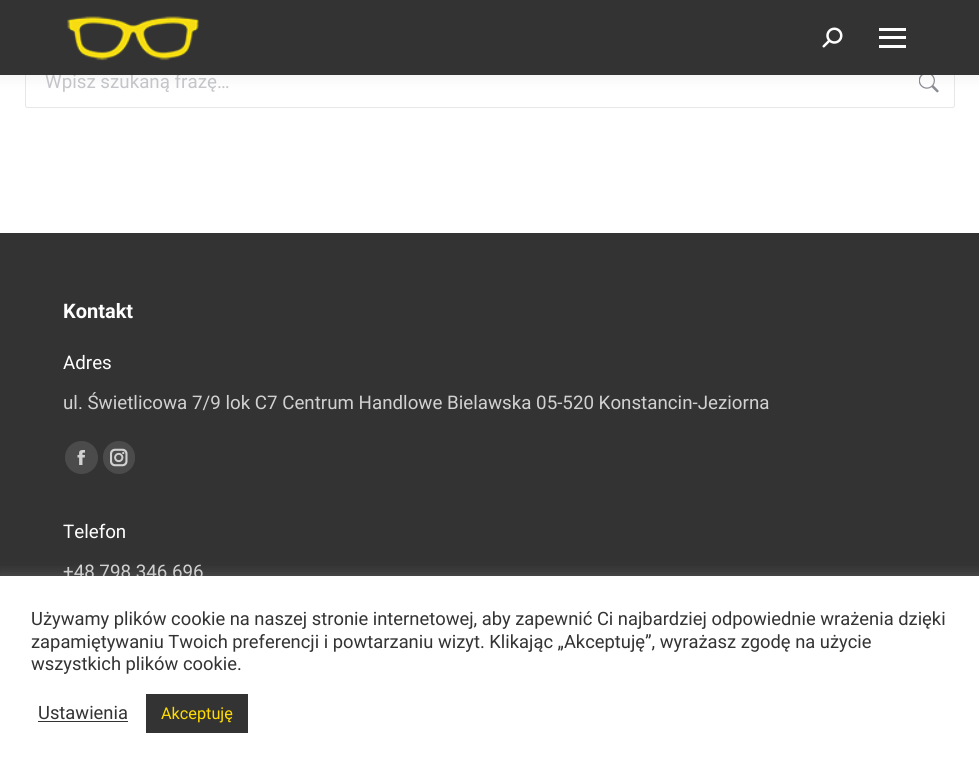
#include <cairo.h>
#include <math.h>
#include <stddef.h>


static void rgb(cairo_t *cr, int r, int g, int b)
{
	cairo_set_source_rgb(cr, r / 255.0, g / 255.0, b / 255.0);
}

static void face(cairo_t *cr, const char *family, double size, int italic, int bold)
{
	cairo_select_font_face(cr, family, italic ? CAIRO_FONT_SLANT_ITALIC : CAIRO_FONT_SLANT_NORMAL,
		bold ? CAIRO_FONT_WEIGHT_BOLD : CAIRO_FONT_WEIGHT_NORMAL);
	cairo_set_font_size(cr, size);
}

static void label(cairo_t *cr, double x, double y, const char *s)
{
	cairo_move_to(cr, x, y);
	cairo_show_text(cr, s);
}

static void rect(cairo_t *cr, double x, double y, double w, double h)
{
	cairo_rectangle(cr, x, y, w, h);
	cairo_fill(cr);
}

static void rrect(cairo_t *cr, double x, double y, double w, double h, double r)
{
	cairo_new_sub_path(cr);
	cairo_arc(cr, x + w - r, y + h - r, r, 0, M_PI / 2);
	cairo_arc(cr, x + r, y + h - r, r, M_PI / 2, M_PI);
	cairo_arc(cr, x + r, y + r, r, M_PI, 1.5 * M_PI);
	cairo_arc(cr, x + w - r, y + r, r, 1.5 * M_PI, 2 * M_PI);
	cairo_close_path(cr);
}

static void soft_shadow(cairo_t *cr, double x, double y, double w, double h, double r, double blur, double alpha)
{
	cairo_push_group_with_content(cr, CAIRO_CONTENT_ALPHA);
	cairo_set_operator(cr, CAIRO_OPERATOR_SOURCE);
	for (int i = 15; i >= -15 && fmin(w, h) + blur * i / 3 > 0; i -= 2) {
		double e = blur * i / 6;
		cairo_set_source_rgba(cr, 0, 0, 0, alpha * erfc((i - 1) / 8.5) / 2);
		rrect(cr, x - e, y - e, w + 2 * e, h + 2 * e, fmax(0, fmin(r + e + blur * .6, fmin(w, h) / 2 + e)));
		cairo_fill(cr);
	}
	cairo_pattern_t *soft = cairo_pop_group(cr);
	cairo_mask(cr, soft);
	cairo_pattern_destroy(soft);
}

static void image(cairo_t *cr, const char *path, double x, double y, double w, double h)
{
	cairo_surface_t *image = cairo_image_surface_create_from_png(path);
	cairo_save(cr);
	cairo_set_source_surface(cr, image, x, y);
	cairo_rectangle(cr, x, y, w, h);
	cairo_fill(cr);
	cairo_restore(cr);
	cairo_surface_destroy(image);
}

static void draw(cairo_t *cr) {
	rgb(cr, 255, 255, 255);
	cairo_paint(cr);
	rrect(cr, 25.5, 58.5, 929, 49, 2);
	rgb(cr, 231, 231, 231);
	cairo_set_line_width(cr, 1);
	cairo_stroke(cr);
	image(cr, "image2.png", 919, 75, 20, 18);
	rgb(cr, 0, 0, 0);
	soft_shadow(cr, -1, -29, 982, 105, 0, 9.5, 0.07);
	face(cr, "Roboto", 18.75, 0, 0);
	rgb(cr, 196, 197, 201);
	label(cr, 45, 88, "Wpisz szukaną frazę…");
	rgb(cr, 51, 51, 51);
	rect(cr, 0, 0, 979, 75);
	image(cr, "image0.png", 67, 16, 132, 45);
	image(cr, "image1.png", 822, 27, 21, 21);
	rgb(cr, 255, 255, 255);
	rect(cr, 879, 28, 27, 3);
	rect(cr, 879, 36, 27, 3);
	rect(cr, 879, 45, 27, 3);
	rgb(cr, 51, 51, 51);
	rect(cr, 0, 233, 979, 343);
	face(cr, "Roboto", 20, 0, 1);
	rgb(cr, 255, 255, 255);
	label(cr, 63, 318, "Kontakt");
	face(cr, "Roboto", 18.75, 0, 0);
	label(cr, 63, 369, "Adres");
	rgb(cr, 209, 209, 209);
	label(cr, 63, 409, "ul. Świetlicowa 7/9 lok C7 Centrum Handlowe Bielawska 05-520 Konstancin-Jeziorna");
	rgb(cr, 75, 75, 75);
	cairo_new_path(cr);
	cairo_arc(cr, 81.5, 457.5, 16.5, 0, 2 * M_PI);
	cairo_fill(cr);
	image(cr, "image3.png", 77, 450, 8, 15);
	rrect(cr, 103, 441, 32, 33, 16);
	cairo_fill(cr);
	image(cr, "image4.png", 110, 448, 18, 19);
	rgb(cr, 255, 255, 255);
	label(cr, 63, 538, "Telefon");
	rgb(cr, 209, 209, 209);
	label(cr, 63, 578, "+48 798 346 696");
	rgb(cr, 172, 171, 171);
	soft_shadow(cr, 0, 575, 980, 194, 0, 6, 0.3);
	rgb(cr, 255, 255, 255);
	rect(cr, 0, 576, 979, 193);
	face(cr, "Roboto", 18.35, 0, 0);
	rgb(cr, 51, 51, 51);
	label(cr, 31, 625, "Używamy plików cookie na naszej stronie internetowej, aby zapewnić Ci najbardziej odpowiednie wrażenia dzięki");
	label(cr, 31, 648, "zapamiętywaniu Twoich preferencji i powtarzaniu wizyt. Klikając „Akceptuję”, wyrażasz zgodę na użycie");
	label(cr, 31, 670, "wszystkich plików cookie.");
	label(cr, 38, 719, "Ustawienia");
	rect(cr, 38, 721, 90, 1);
	rect(cr, 146, 694, 102, 39);
	face(cr, "Roboto", 16.25, 0, 0);
	rgb(cr, 255, 221, 0);
	label(cr, 161, 719, "Akceptuję");
}

int main(void) {
	cairo_surface_t *surface = cairo_image_surface_create(CAIRO_FORMAT_RGB24, 979, 769);
	cairo_t *cr = cairo_create(surface);
	cairo_font_options_t *options = cairo_font_options_create();
	cairo_font_options_set_hint_metrics(options, CAIRO_HINT_METRICS_OFF);
	cairo_font_options_set_hint_style(options, CAIRO_HINT_STYLE_NONE);
	cairo_set_font_options(cr, options);
	cairo_set_miter_limit(cr, 4);
	draw(cr);
	cairo_surface_write_to_png(surface, "render.png");
	cairo_font_options_destroy(options);
	cairo_destroy(cr);
	cairo_surface_destroy(surface);
	return 0;
}
